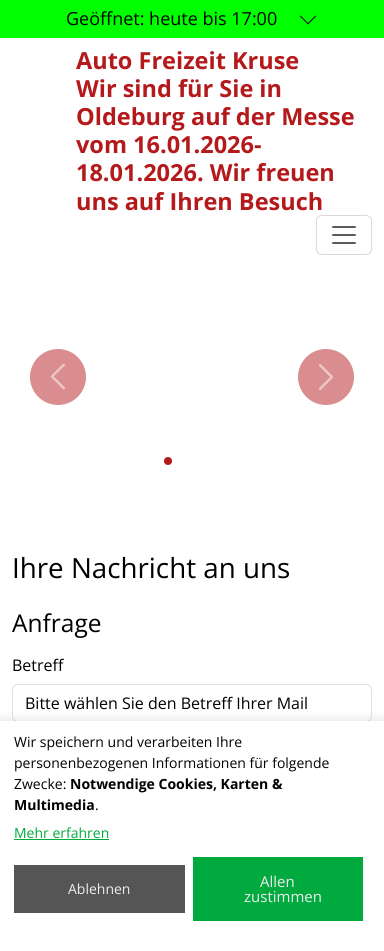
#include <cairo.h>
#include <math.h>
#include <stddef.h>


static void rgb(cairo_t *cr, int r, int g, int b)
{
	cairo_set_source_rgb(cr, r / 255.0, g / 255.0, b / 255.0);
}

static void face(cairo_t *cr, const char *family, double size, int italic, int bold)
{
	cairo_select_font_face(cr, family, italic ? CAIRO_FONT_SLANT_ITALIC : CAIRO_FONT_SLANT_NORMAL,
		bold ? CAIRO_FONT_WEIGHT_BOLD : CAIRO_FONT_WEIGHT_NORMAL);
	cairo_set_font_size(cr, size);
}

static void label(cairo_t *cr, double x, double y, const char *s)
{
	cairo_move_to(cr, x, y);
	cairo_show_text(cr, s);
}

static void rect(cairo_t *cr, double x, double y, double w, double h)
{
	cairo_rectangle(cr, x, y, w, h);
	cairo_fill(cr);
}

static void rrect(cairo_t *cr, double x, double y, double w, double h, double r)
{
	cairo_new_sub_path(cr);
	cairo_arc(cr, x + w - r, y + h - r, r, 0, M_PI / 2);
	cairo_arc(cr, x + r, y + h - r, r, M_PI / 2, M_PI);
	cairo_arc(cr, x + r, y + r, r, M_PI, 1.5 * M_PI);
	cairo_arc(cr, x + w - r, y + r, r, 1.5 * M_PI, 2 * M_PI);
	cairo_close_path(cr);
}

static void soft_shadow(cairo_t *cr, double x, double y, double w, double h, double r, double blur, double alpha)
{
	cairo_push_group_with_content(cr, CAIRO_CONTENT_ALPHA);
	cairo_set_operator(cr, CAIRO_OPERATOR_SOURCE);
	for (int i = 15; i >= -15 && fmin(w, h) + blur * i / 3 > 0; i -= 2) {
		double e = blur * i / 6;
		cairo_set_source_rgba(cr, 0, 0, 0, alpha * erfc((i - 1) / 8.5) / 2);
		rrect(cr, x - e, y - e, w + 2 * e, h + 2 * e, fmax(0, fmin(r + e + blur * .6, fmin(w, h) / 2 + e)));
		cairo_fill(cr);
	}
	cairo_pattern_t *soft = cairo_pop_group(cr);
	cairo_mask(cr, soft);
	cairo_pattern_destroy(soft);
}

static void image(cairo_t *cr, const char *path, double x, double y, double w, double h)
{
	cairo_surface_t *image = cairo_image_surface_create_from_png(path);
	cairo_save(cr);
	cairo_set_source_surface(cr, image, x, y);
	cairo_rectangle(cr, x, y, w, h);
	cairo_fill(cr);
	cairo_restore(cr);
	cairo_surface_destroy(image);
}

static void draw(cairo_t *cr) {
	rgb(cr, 255, 255, 255);
	cairo_paint(cr);
	rgb(cr, 0, 255, 0);
	rect(cr, 0, 0, 384, 38);
	face(cr, "Open Sans", 18, 0, 0);
	rgb(cr, 0, 0, 0);
	label(cr, 66, 25, "Geöffnet: heute bis 17:00");
	image(cr, "image0.png", 299, 15, 18, 10);
	face(cr, "Open Sans", 23.5, 0, 1);
	rgb(cr, 180, 26, 28);
	label(cr, 76, 69, "Auto Freizeit Kruse");
	label(cr, 76, 97, "Wir sind für Sie in");
	label(cr, 76, 125, "Oldeburg auf der Messe");
	label(cr, 76, 153, "vom 16.01.2026-");
	label(cr, 76, 181, "18.01.2026. Wir freuen");
	label(cr, 76, 210, "uns auf Ihren Besuch");
	rrect(cr, 316.5, 215.5, 55, 39, 5.5);
	rgb(cr, 217, 217, 217);
	cairo_set_line_width(cr, 1);
	cairo_stroke(cr);
	image(cr, "image1.png", 332, 226, 24, 18);
	rgb(cr, 218, 141, 142);
	cairo_arc(cr, 58, 377, 20.5, 0, 2 * M_PI);
	cairo_fill_preserve(cr);
	cairo_set_line_width(cr, 15);
	cairo_stroke(cr);
	image(cr, "image2.png", 50, 364, 16, 26);
	cairo_arc(cr, 326, 377, 20.5, 0, 2 * M_PI);
	cairo_fill_preserve(cr);
	cairo_stroke(cr);
	image(cr, "image3.png", 319, 364, 14, 26);
	rgb(cr, 180, 26, 28);
	cairo_arc(cr, 168, 461, 4, 0, 2 * M_PI);
	cairo_fill(cr);
	face(cr, "Open Sans", 27.75, 0, 0);
	rgb(cr, 0, 0, 0);
	label(cr, 12, 578, "Ihre Nachricht an uns");
	face(cr, "Open Sans", 24.5, 0, 0);
	label(cr, 12, 632, "Anfrage");
	face(cr, "Open Sans", 16, 0, 0);
	label(cr, 12, 671, "Betreff");
	rrect(cr, 12.5, 684.5, 359, 37, 5.5);
	rgb(cr, 222, 226, 230);
	cairo_set_line_width(cr, 1);
	cairo_stroke(cr);
	rgb(cr, 0, 0, 0);
	label(cr, 25, 709, "Bitte wählen Sie den Betreff Ihrer Mail");
	rgb(cr, 0, 0, 0);
	soft_shadow(cr, -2, 719, 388, 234, 0, 5, 0.1);
	rgb(cr, 255, 255, 255);
	rect(cr, 0, 721, 384, 230);
	face(cr, "Open Sans", 14, 0, 0);
	rgb(cr, 0, 0, 0);
	label(cr, 14, 747, "Wir speichern und verarbeiten Ihre");
	label(cr, 14, 768, "personenbezogenen Informationen für folgende");
	label(cr, 14, 789, "Zwecke:");
	face(cr, "Open Sans", 14, 0, 1);
	label(cr, 70, 789, "Notwendige Cookies, Karten &");
	label(cr, 14, 810, "Multimedia");
	face(cr, "Open Sans", 14, 0, 0);
	label(cr, 95, 810, ".");
	rgb(cr, 0, 170, 62);
	label(cr, 14, 838, "Mehr erfahren");
	rect(cr, 14, 839, 95, 1);
	rgb(cr, 85, 85, 85);
	rect(cr, 14, 865, 171, 48);
	rgb(cr, 238, 238, 238);
	label(cr, 68, 894, "Ablehnen");
	rgb(cr, 0, 170, 62);
	rect(cr, 193, 857, 170, 64);
	face(cr, "Open Sans", 15, 0, 0);
	rgb(cr, 238, 238, 238);
	label(cr, 260, 887, "Allen");
	label(cr, 244, 902, "zustimmen");
}

int main(void) {
	cairo_surface_t *surface = cairo_image_surface_create(CAIRO_FORMAT_RGB24, 384, 951);
	cairo_t *cr = cairo_create(surface);
	cairo_font_options_t *options = cairo_font_options_create();
	cairo_font_options_set_hint_metrics(options, CAIRO_HINT_METRICS_OFF);
	cairo_font_options_set_hint_style(options, CAIRO_HINT_STYLE_NONE);
	cairo_set_font_options(cr, options);
	cairo_set_miter_limit(cr, 4);
	draw(cr);
	cairo_surface_write_to_png(surface, "render.png");
	cairo_font_options_destroy(options);
	cairo_destroy(cr);
	cairo_surface_destroy(surface);
	return 0;
}
